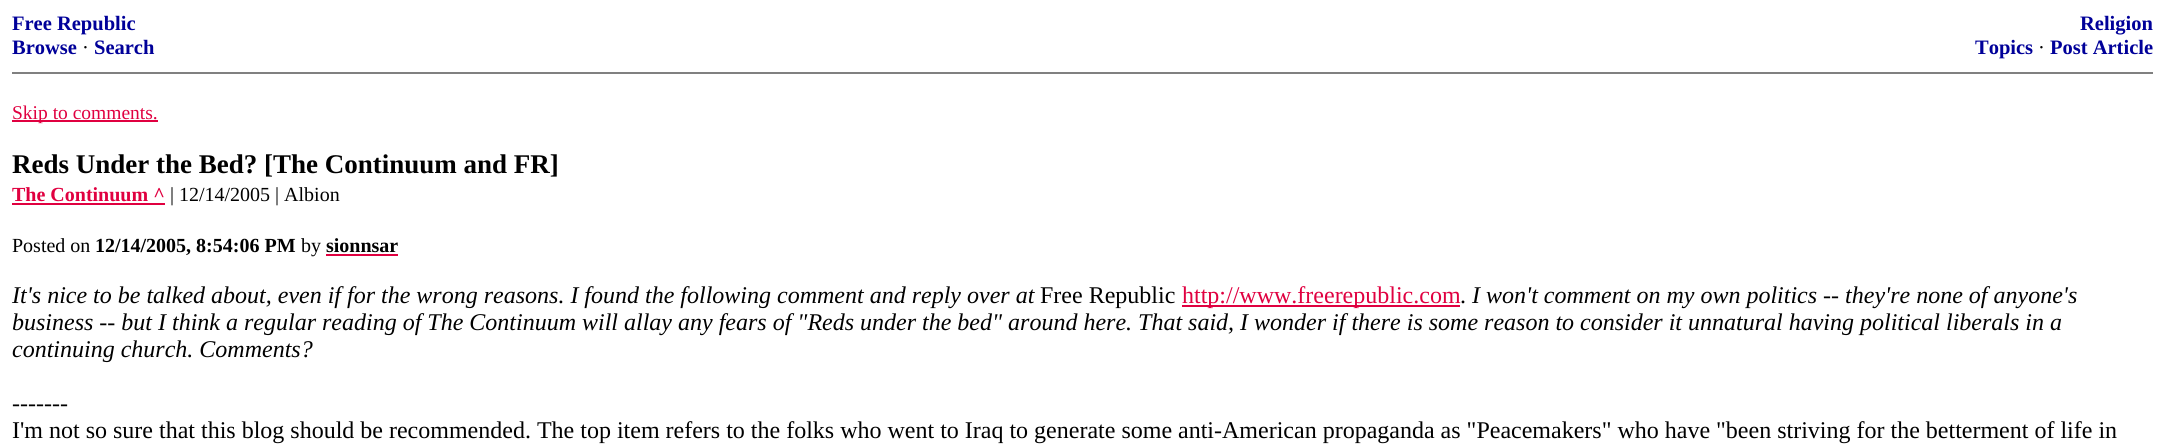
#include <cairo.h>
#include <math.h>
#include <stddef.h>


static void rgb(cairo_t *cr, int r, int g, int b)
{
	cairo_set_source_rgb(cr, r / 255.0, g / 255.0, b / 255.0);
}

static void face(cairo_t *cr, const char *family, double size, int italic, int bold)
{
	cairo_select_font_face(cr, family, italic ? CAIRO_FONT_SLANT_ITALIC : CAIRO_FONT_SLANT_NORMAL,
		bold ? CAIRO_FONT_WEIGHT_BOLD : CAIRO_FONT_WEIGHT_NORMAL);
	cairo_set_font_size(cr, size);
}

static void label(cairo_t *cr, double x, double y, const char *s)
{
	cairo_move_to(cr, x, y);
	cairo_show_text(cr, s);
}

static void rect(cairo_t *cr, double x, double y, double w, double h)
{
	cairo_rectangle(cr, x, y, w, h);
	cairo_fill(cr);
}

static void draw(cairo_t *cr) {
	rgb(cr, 255, 255, 255);
	cairo_paint(cr);
	face(cr, "Liberation Serif", 20.5, 0, 1);
	rgb(cr, 0, 0, 153);
	label(cr, 12, 30, "Free Republic");
	label(cr, 12, 54, "Browse");
	face(cr, "Liberation Serif", 20.5, 0, 0);
	rgb(cr, 0, 0, 0);
	label(cr, 82, 54, "·");
	face(cr, "Liberation Serif", 20.5, 0, 1);
	rgb(cr, 0, 0, 153);
	label(cr, 94, 54, "Search");
	label(cr, 2080, 30, "Religion");
	label(cr, 1975, 54, "Topics");
	face(cr, "Liberation Serif", 20.5, 0, 0);
	rgb(cr, 0, 0, 0);
	label(cr, 2038, 54, "·");
	face(cr, "Liberation Serif", 20.5, 0, 1);
	rgb(cr, 0, 0, 153);
	label(cr, 2050, 54, "Post Article");
	rgb(cr, 128, 128, 128);
	rect(cr, 12, 72, 2141, 2);
	rgb(cr, 224, 0, 64);
	rect(cr, 12, 120, 146, 2);
	face(cr, "Liberation Serif", 19.5, 0, 0);
	label(cr, 12, 119, "Skip to comments.");
	face(cr, "Liberation Serif", 27, 0, 1);
	rgb(cr, 0, 0, 0);
	label(cr, 12, 173, "Reds Under the Bed? [The Continuum and FR]");
	face(cr, "Liberation Serif", 20, 0, 1);
	rgb(cr, 224, 0, 64);
	label(cr, 12, 201, "The Continuum ^");
	rect(cr, 12, 203, 153, 2);
	face(cr, "Liberation Serif", 20, 0, 0);
	rgb(cr, 0, 0, 0);
	label(cr, 170, 201, "| 12/14/2005 | Albion");
	label(cr, 12, 252, "Posted on");
	face(cr, "Liberation Serif", 20, 0, 1);
	label(cr, 95, 252, "12/14/2005, 8:54:06 PM");
	face(cr, "Liberation Serif", 20, 0, 0);
	label(cr, 301, 252, "by");
	face(cr, "Liberation Serif", 20, 0, 1);
	label(cr, 326, 252, "sionnsar");
	rgb(cr, 224, 0, 64);
	rect(cr, 326, 254, 72, 2);
	face(cr, "Liberation Serif", 24, 1, 0);
	rgb(cr, 0, 0, 0);
	label(cr, 12, 303, "It's nice to be talked about, even if for the wrong reasons. I found the following comment and reply over at");
	face(cr, "Liberation Serif", 24, 0, 0);
	label(cr, 1040, 303, "Free Republic");
	rgb(cr, 224, 0, 64);
	rect(cr, 1182, 305, 278, 2);
	label(cr, 1182, 303, "http://www.freerepublic.com");
	rgb(cr, 0, 0, 0);
	label(cr, 1460, 303, ".");
	face(cr, "Liberation Serif", 24, 1, 0);
	label(cr, 1472, 303, "I won't comment on my own politics -- they're none of anyone's");
	label(cr, 12, 330, "business -- but I think a regular reading of The Continuum will allay any fears of \"Reds under the bed\" around here. That said, I wonder if there is some reason to consider it unnatural having political liberals in a");
	label(cr, 12, 357, "continuing church. Comments?");
	face(cr, "Liberation Serif", 24, 0, 0);
	label(cr, 12, 411, "-------");
	label(cr, 12, 438, "I'm not so sure that this blog should be recommended. The top item refers to the folks who went to Iraq to generate some anti-American propaganda as \"Peacemakers\" who have \"been striving for the betterment of life in");
}

int main(void) {
	cairo_surface_t *surface = cairo_image_surface_create(CAIRO_FORMAT_RGB24, 2164, 447);
	cairo_t *cr = cairo_create(surface);
	cairo_font_options_t *options = cairo_font_options_create();
	cairo_font_options_set_hint_metrics(options, CAIRO_HINT_METRICS_OFF);
	cairo_font_options_set_hint_style(options, CAIRO_HINT_STYLE_NONE);
	cairo_set_font_options(cr, options);
	cairo_set_miter_limit(cr, 4);
	draw(cr);
	cairo_surface_write_to_png(surface, "render.png");
	cairo_font_options_destroy(options);
	cairo_destroy(cr);
	cairo_surface_destroy(surface);
	return 0;
}
